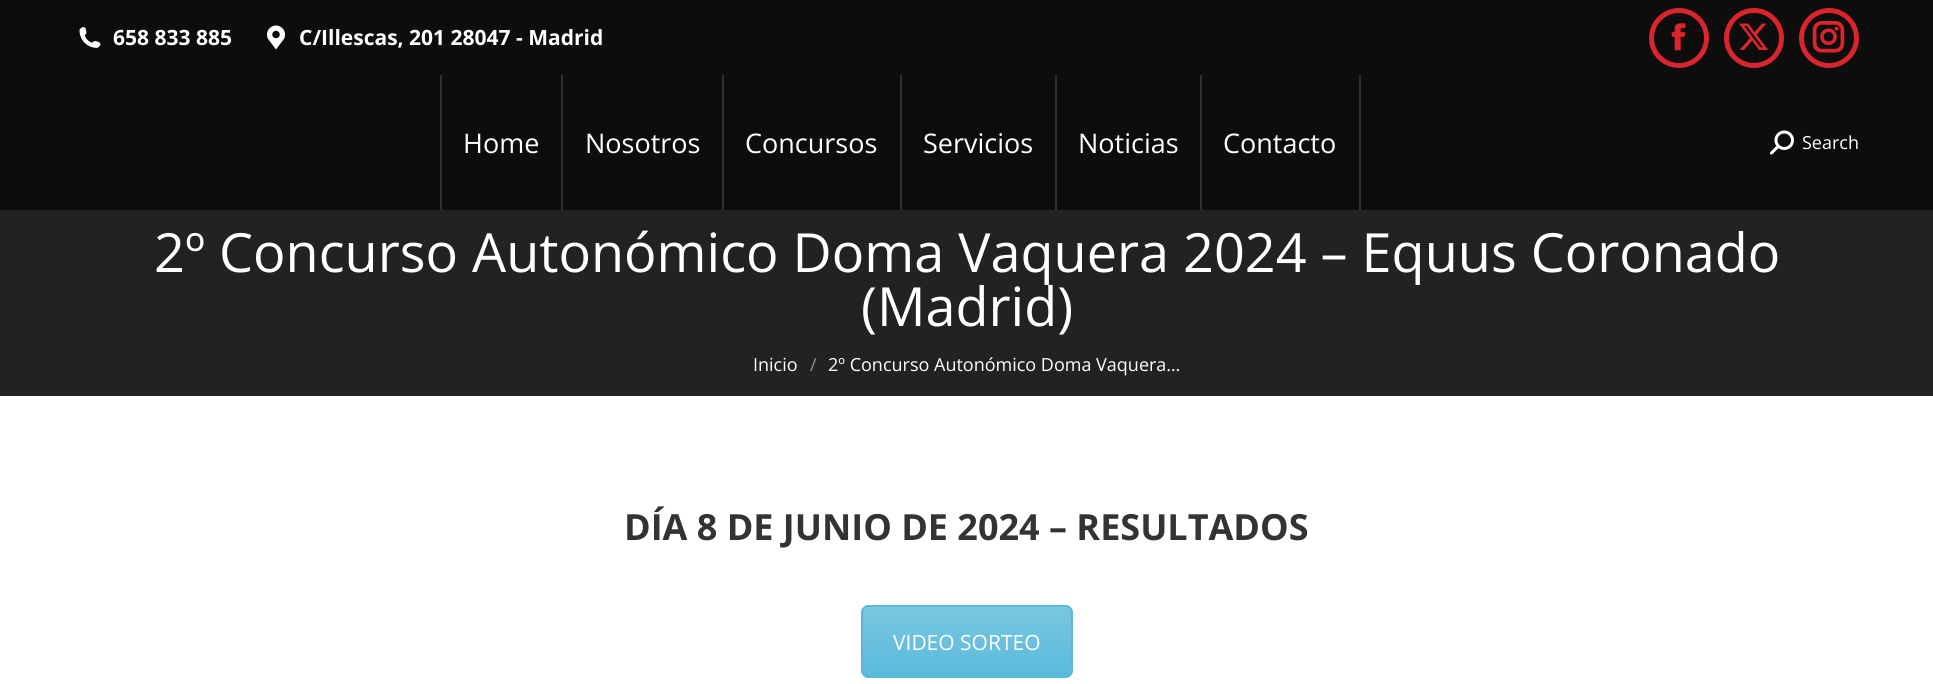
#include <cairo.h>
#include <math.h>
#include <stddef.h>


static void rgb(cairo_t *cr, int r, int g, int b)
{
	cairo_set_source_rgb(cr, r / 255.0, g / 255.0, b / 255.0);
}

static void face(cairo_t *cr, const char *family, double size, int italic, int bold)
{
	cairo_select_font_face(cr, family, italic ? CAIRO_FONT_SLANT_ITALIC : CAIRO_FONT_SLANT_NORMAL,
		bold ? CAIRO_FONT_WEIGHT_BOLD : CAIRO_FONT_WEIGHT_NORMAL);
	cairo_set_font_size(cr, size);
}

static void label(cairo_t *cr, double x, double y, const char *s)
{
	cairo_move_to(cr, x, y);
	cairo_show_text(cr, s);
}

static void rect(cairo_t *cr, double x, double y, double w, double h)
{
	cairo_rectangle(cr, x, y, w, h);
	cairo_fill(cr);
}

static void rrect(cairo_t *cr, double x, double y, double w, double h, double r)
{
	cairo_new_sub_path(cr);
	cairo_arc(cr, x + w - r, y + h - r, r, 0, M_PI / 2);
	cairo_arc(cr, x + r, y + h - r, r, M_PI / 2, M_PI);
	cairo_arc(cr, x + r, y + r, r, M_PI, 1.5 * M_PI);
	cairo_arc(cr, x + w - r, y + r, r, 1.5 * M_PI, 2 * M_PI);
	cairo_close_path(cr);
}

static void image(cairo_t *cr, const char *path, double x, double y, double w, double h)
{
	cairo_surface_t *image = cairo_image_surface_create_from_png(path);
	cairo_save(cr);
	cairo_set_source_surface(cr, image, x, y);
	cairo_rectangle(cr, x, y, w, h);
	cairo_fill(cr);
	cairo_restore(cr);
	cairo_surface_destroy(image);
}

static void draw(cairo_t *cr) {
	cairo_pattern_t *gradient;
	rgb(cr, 255, 255, 255);
	cairo_paint(cr);
	rgb(cr, 13, 13, 13);
	rect(cr, 0, 0, 1933, 210);
	image(cr, "image0.png", 79, 27, 22, 21);
	face(cr, "Open Sans", 21, 0, 1);
	rgb(cr, 255, 255, 255);
	label(cr, 113, 45, "658 833 885");
	image(cr, "image1.png", 267, 25, 18, 25);
	label(cr, 299, 45, "C/Illescas, 201 28047 - Madrid");
	cairo_new_path(cr);
	cairo_arc(cr, 1679, 38, 27.5, 0, 2 * M_PI);
	rgb(cr, 220, 36, 45);
	cairo_set_line_width(cr, 5);
	cairo_stroke(cr);
	image(cr, "image2.png", 1671, 23, 15, 28);
	cairo_arc(cr, 1754, 38, 27.5, 0, 2 * M_PI);
	cairo_stroke(cr);
	image(cr, "image3.png", 1739, 23, 30, 27);
	cairo_arc(cr, 1829, 38, 27.5, 0, 2 * M_PI);
	cairo_stroke(cr);
	image(cr, "image4.png", 1812, 21, 33, 32);
	rgb(cr, 49, 49, 49);
	rect(cr, 440, 75, 2, 135);
	face(cr, "Open Sans", 27, 0, 0);
	rgb(cr, 255, 255, 255);
	label(cr, 463, 153, "Home");
	rgb(cr, 49, 49, 49);
	rect(cr, 561, 75, 2, 135);
	rgb(cr, 255, 255, 255);
	label(cr, 585, 153, "Nosotros");
	rgb(cr, 49, 49, 49);
	rect(cr, 722, 75, 2, 135);
	rgb(cr, 255, 255, 255);
	label(cr, 745, 153, "Concursos");
	rgb(cr, 49, 49, 49);
	rect(cr, 900, 75, 2, 135);
	rgb(cr, 255, 255, 255);
	label(cr, 923, 153, "Servicios");
	rgb(cr, 49, 49, 49);
	rect(cr, 1055, 75, 2, 135);
	rgb(cr, 255, 255, 255);
	label(cr, 1078, 153, "Noticias");
	rgb(cr, 49, 49, 49);
	rect(cr, 1200, 75, 2, 135);
	rgb(cr, 255, 255, 255);
	label(cr, 1223, 153, "Contacto");
	rgb(cr, 49, 49, 49);
	rect(cr, 1359, 75, 2, 135);
	image(cr, "image5.png", 1770, 130, 24, 25);
	face(cr, "Open Sans", 18, 0, 0);
	rgb(cr, 255, 255, 255);
	label(cr, 1802, 149, "Search");
	rgb(cr, 34, 34, 34);
	rect(cr, 0, 210, 1933, 186);
	face(cr, "Open Sans", 54, 0, 0);
	rgb(cr, 255, 255, 255);
	label(cr, 154, 272, "2º Concurso Autonómico Doma Vaquera 2024 – Equus Coronado");
	label(cr, 861, 326, "(Madrid)");
	face(cr, "Open Sans", 18, 0, 0);
	label(cr, 753, 371, "Inicio");
	rgb(cr, 145, 145, 145);
	label(cr, 810, 371, "/");
	rgb(cr, 255, 255, 255);
	label(cr, 828, 371, "2º Concurso Autonómico Doma Vaquera…");
	face(cr, "Open Sans", 36, 0, 1);
	rgb(cr, 51, 51, 51);
	label(cr, 624, 540, "DÍA 8 DE JUNIO DE 2024 – RESULTADOS");
	rgb(cr, 88, 185, 218);
	rrect(cr, 861, 605, 212, 73, 8);
	cairo_fill(cr);
	cairo_save(cr);
	rrect(cr, 861, 605, 212, 73, 8);
	cairo_clip(cr);
	gradient = cairo_pattern_create_linear(967, 606, 967, 677);
	cairo_pattern_add_color_stop_rgba(gradient, 0, 1, 1, 1, 0.2);
	cairo_pattern_add_color_stop_rgba(gradient, 1, 1, 1, 1, 0.01);
	cairo_set_source(cr, gradient);
	cairo_pattern_destroy(gradient);
	rect(cr, 861, 606, 212, 67);
	cairo_restore(cr);
	rrect(cr, 862, 606, 210, 71, 7);
	cairo_set_line_width(cr, 2);
	cairo_stroke(cr);
	face(cr, "Open Sans", 21, 0, 0);
	rgb(cr, 255, 255, 255);
	label(cr, 893, 650, "VIDEO SORTEO");
}

int main(void) {
	cairo_surface_t *surface = cairo_image_surface_create(CAIRO_FORMAT_RGB24, 1933, 684);
	cairo_t *cr = cairo_create(surface);
	cairo_font_options_t *options = cairo_font_options_create();
	cairo_font_options_set_hint_metrics(options, CAIRO_HINT_METRICS_OFF);
	cairo_font_options_set_hint_style(options, CAIRO_HINT_STYLE_NONE);
	cairo_set_font_options(cr, options);
	cairo_set_miter_limit(cr, 4);
	draw(cr);
	cairo_surface_write_to_png(surface, "render.png");
	cairo_font_options_destroy(options);
	cairo_destroy(cr);
	cairo_surface_destroy(surface);
	return 0;
}
